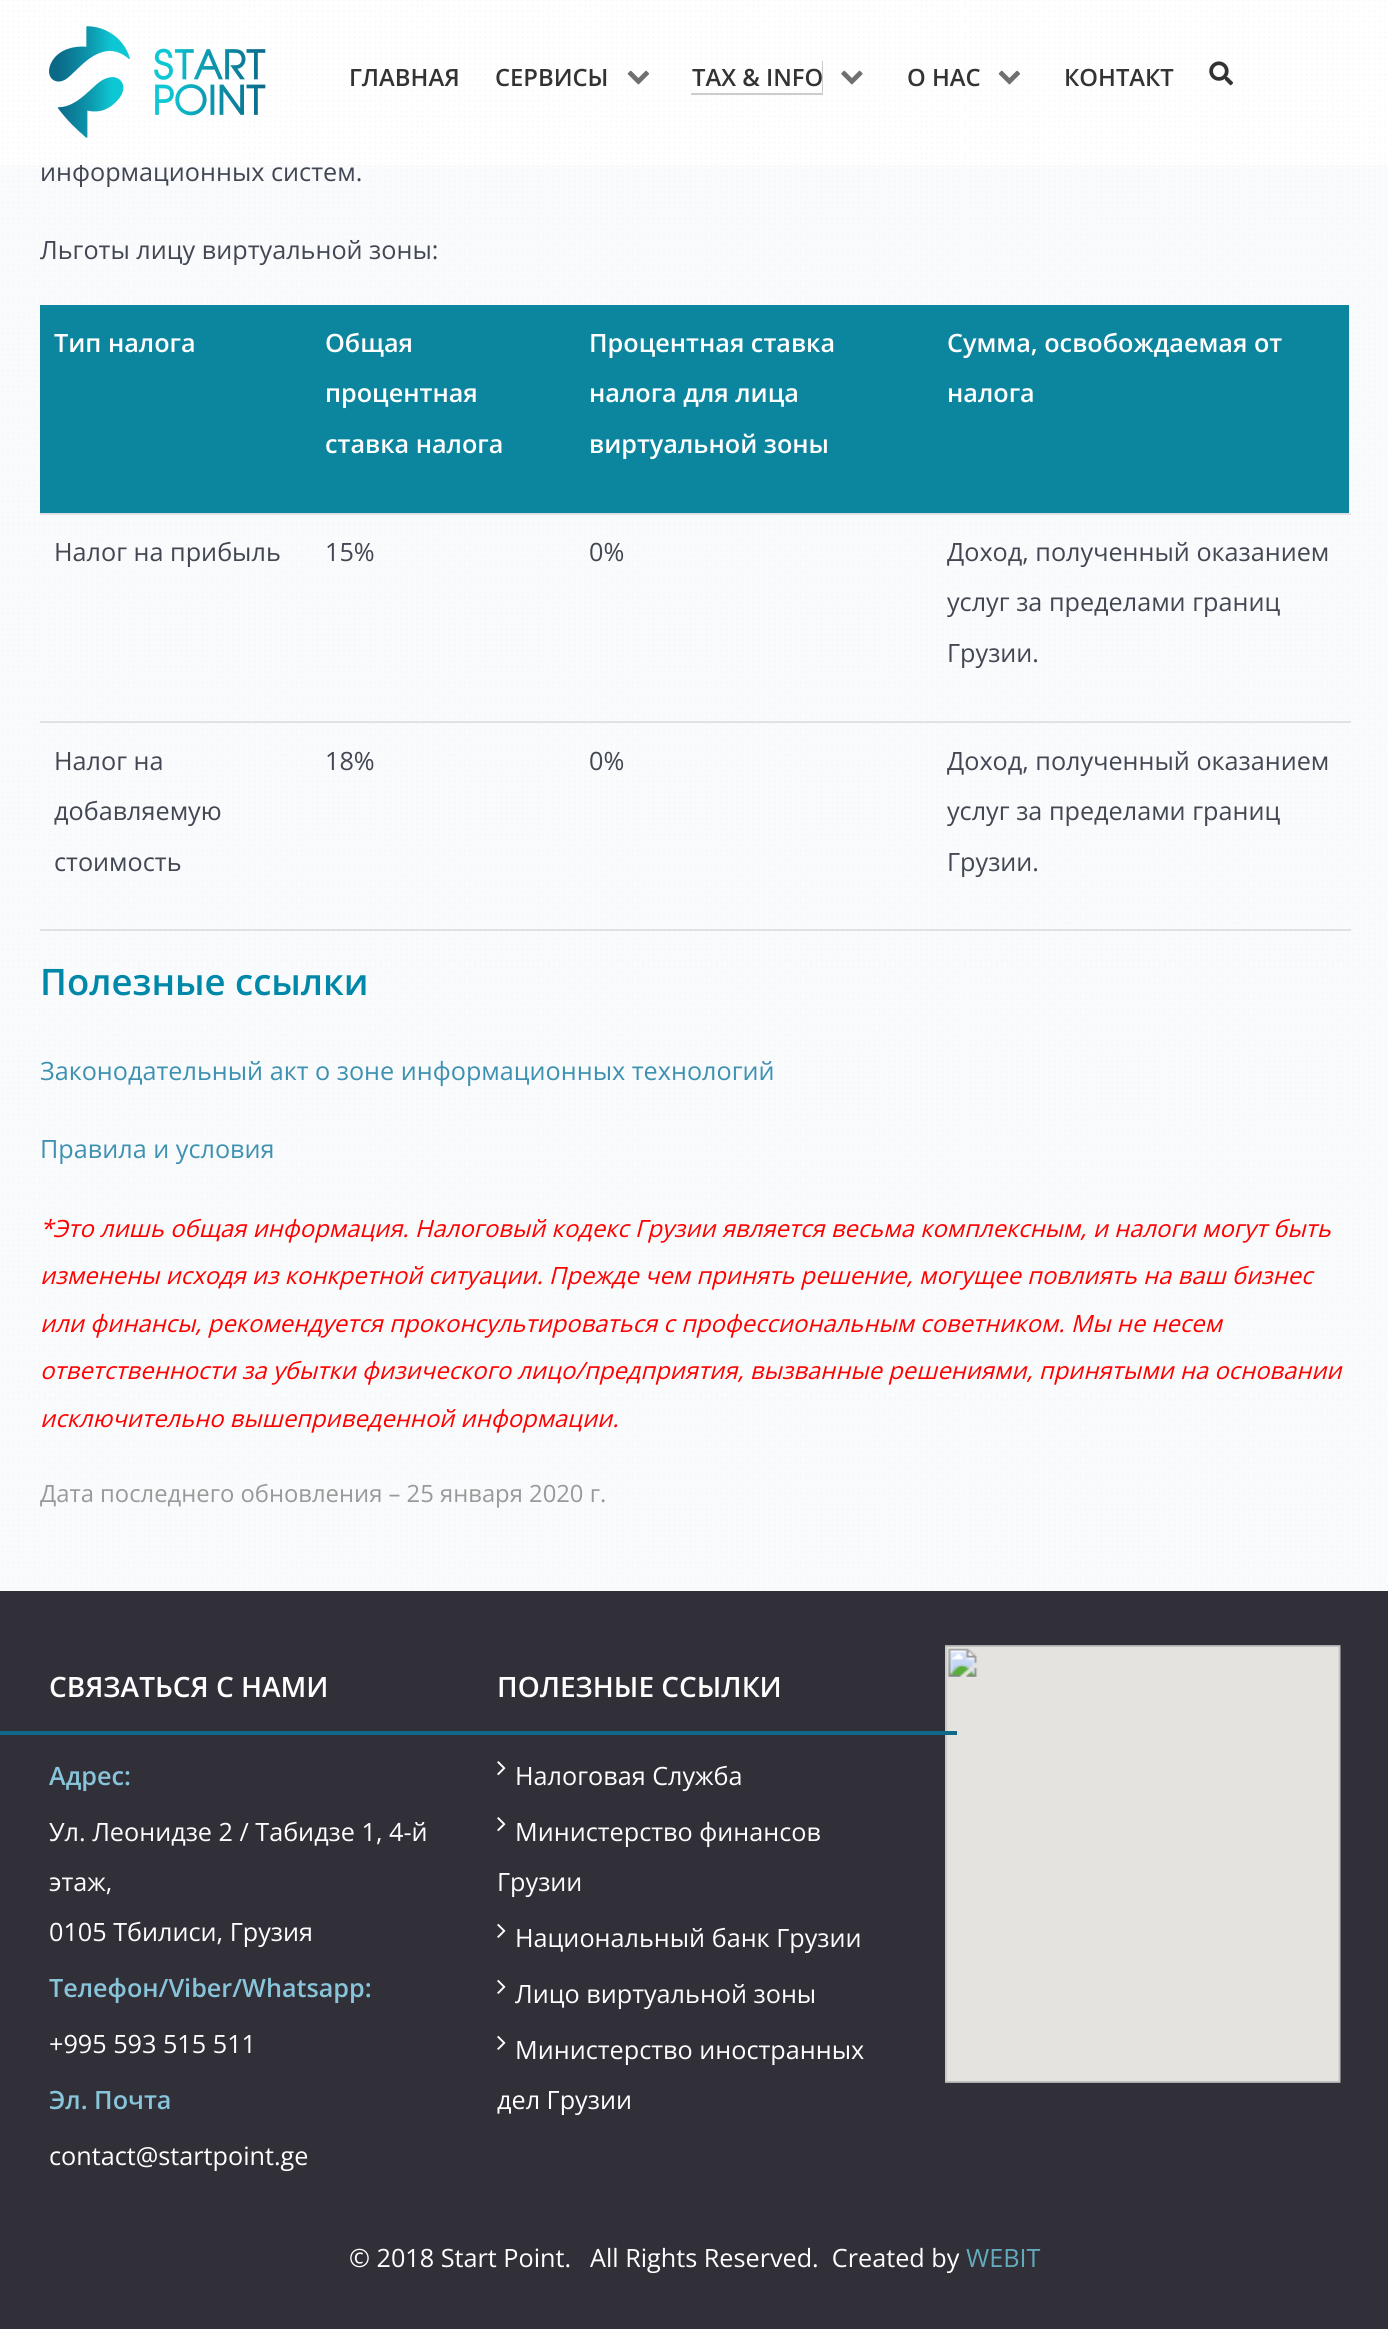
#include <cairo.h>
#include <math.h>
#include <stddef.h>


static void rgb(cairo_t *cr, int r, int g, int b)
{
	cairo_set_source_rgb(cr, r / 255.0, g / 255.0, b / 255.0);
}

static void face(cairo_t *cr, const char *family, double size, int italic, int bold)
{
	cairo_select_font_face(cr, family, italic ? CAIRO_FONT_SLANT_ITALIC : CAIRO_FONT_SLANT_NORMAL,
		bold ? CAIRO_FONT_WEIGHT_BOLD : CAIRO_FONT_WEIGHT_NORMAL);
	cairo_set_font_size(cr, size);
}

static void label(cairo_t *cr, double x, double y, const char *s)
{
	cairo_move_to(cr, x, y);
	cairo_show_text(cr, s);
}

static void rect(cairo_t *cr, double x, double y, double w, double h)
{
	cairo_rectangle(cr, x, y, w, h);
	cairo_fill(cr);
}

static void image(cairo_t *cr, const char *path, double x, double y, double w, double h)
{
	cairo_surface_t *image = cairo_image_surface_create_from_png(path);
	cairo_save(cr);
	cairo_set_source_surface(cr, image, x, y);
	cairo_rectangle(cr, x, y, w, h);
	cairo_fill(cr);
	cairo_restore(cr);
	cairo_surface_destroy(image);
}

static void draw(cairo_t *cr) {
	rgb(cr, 255, 255, 255);
	cairo_paint(cr);
	image(cr, "image6.png", 2, 165, 1384, 1426);
	cairo_set_source_rgba(cr, 0.957, 0.961, 0.969, 0.4);
	rect(cr, 0, 165, 1388, 1426);
	face(cr, "Open Sans", 25.2, 0, 0);
	rgb(cr, 66, 71, 83);
	label(cr, 40, 181, "информационных систем.");
	rgb(cr, 255, 255, 255);
	rect(cr, 80, 161, 3, 4);
	image(cr, "image0.png", 2, 0, 1384, 164);
	image(cr, "image1.png", 49, 26, 217, 112);
	face(cr, "Open Sans SemiBold", 23.8, 0, 0);
	rgb(cr, 51, 51, 51);
	label(cr, 349, 86, "ГЛАВНАЯ");
	label(cr, 495, 86, "СЕРВИСЫ");
	image(cr, "image2.png", 627, 70, 22, 15);
	rgb(cr, 204, 204, 204);
	cairo_new_path(cr);
	cairo_move_to(cr, 691, 61);
	cairo_line_to(cr, 691, 95);
	cairo_line_to(cr, 823, 95);
	cairo_line_to(cr, 823, 61);
	cairo_line_to(cr, 822, 61);
	cairo_line_to(cr, 822, 93);
	cairo_line_to(cr, 691, 93);
	cairo_close_path(cr);
	cairo_fill(cr);
	rgb(cr, 51, 51, 51);
	label(cr, 692, 86, "TAX & INFO");
	image(cr, "image3.png", 841, 70, 22, 15);
	label(cr, 907, 86, "О НАС");
	image(cr, "image4.png", 998, 70, 22, 15);
	label(cr, 1064, 86, "КОНТАКТ");
	image(cr, "image5.png", 1209, 61, 24, 25);
	face(cr, "Open Sans", 25.2, 0, 0);
	rgb(cr, 66, 71, 83);
	label(cr, 40, 259, "Льготы лицу виртуальной зоны:");
	rgb(cr, 12, 133, 158);
	rect(cr, 40, 305, 1309, 208);
	rgb(cr, 224, 224, 229);
	rect(cr, 40, 513, 1311, 2);
	face(cr, "Open Sans SemiBold", 25.2, 0, 0);
	rgb(cr, 255, 255, 255);
	label(cr, 54, 352, "Тип налога");
	label(cr, 325, 352, "Общая");
	label(cr, 325, 402, "процентная");
	label(cr, 325, 453, "ставка налога");
	label(cr, 589, 352, "Процентная ставка");
	label(cr, 589, 402, "налога для лица");
	label(cr, 589, 453, "виртуальной зоны");
	label(cr, 947, 352, "Сумма, освобождаемая от");
	label(cr, 947, 402, "налога");
	rgb(cr, 224, 224, 229);
	rect(cr, 40, 721, 1311, 2);
	face(cr, "Open Sans", 25.2, 0, 0);
	rgb(cr, 66, 71, 83);
	label(cr, 54, 561, "Налог на прибыль");
	label(cr, 325, 561, "15%");
	label(cr, 589, 561, "0%");
	label(cr, 947, 561, "Доход, полученный оказанием");
	label(cr, 947, 611, "услуг за пределами границ");
	label(cr, 947, 662, "Грузии.");
	rgb(cr, 224, 224, 229);
	rect(cr, 40, 929, 1311, 2);
	rgb(cr, 66, 71, 83);
	label(cr, 54, 770, "Налог на");
	label(cr, 54, 820, "добавляемую");
	label(cr, 54, 871, "стоимость");
	label(cr, 325, 770, "18%");
	label(cr, 589, 770, "0%");
	label(cr, 947, 770, "Доход, полученный оказанием");
	label(cr, 947, 820, "услуг за пределами границ");
	label(cr, 947, 871, "Грузии.");
	face(cr, "Open Sans SemiBold", 36.5, 0, 0);
	rgb(cr, 0, 136, 169);
	label(cr, 40, 995, "Полезные ссылки");
	face(cr, "Open Sans", 25.2, 0, 0);
	rgb(cr, 62, 145, 177);
	label(cr, 40, 1080, "Законодательный акт о зоне информационных технологий");
	label(cr, 40, 1158, "Правила и условия");
	face(cr, "Open Sans", 23.8, 1, 0);
	rgb(cr, 255, 0, 0);
	label(cr, 40, 1237, "*Это лишь общая информация. Налоговый кодекс Грузии является весьма комплексным, и налоги могут быть");
	label(cr, 40, 1284, "изменены исходя из конкретной ситуации. Прежде чем принять решение, могущее повлиять на ваш бизнес");
	label(cr, 40, 1332, "или финансы, рекомендуется проконсультироваться с профессиональным советником. Мы не несем");
	label(cr, 40, 1379, "ответственности за убытки физического лицо/предприятия, вызванные решениями, принятыми на основании");
	label(cr, 40, 1427, "исключительно вышеприведенной информации.");
	face(cr, "Open Sans", 23.8, 0, 0);
	rgb(cr, 153, 153, 153);
	label(cr, 40, 1502, "Дата последнего обновления – 25 января 2020 г.");
	rgb(cr, 49, 47, 56);
	rect(cr, 0, 1591, 1388, 738);
	face(cr, "Open Sans SemiBold", 28, 0, 0);
	rgb(cr, 255, 255, 255);
	label(cr, 49, 1697, "СВЯЗАТЬСЯ С НАМИ");
	image(cr, "image9.png", 945, 1645, 396, 438);
	rgb(cr, 15, 106, 138);
	rect(cr, 0, 1731, 957, 4);
	face(cr, "Open Sans SemiBold", 25.2, 0, 0);
	rgb(cr, 136, 196, 218);
	label(cr, 49, 1785, "Адрес:");
	face(cr, "Open Sans", 25.2, 0, 0);
	rgb(cr, 255, 255, 255);
	label(cr, 49, 1841, "Ул. Леонидзе 2 / Табидзе 1, 4-й");
	label(cr, 49, 1891, "этаж,");
	label(cr, 49, 1941, "0105 Тбилиси, Грузия");
	face(cr, "Open Sans SemiBold", 25.2, 0, 0);
	rgb(cr, 136, 196, 218);
	label(cr, 49, 1997, "Телефон/Viber/Whatsapp:");
	face(cr, "Open Sans", 25.2, 0, 0);
	rgb(cr, 255, 255, 255);
	label(cr, 49, 2053, "+995 593 515 511");
	face(cr, "Open Sans SemiBold", 25.2, 0, 0);
	rgb(cr, 136, 196, 218);
	label(cr, 49, 2109, "Эл. Почта");
	face(cr, "Open Sans", 25.2, 0, 0);
	rgb(cr, 255, 255, 255);
	label(cr, 49, 2165, "contact@startpoint.ge");
	face(cr, "Open Sans SemiBold", 28, 0, 0);
	label(cr, 497, 1697, "ПОЛЕЗНЫЕ ССЫЛКИ");
	image(cr, "image7.png", 497, 1761, 9, 15);
	face(cr, "Open Sans", 25.2, 0, 0);
	label(cr, 515, 1785, "Налоговая Служба");
	image(cr, "image7.png", 497, 1817, 9, 15);
	label(cr, 515, 1841, "Министерство финансов");
	label(cr, 497, 1891, "Грузии");
	image(cr, "image8.png", 497, 1923, 9, 15);
	label(cr, 515, 1947, "Национальный банк Грузии");
	image(cr, "image8.png", 497, 1979, 9, 15);
	label(cr, 515, 2003, "Лицо виртуальной зоны");
	image(cr, "image8.png", 497, 2035, 9, 15);
	label(cr, 515, 2059, "Министерство иностранных");
	label(cr, 497, 2109, "дел Грузии");
	label(cr, 349, 2267, "© 2018 Start Point.");
	label(cr, 590, 2267, "All Rights Reserved.  Created by");
	rgb(cr, 98, 171, 189);
	label(cr, 966, 2267, "WEBIT");
}

int main(void) {
	cairo_surface_t *surface = cairo_image_surface_create(CAIRO_FORMAT_RGB24, 1388, 2329);
	cairo_t *cr = cairo_create(surface);
	cairo_font_options_t *options = cairo_font_options_create();
	cairo_font_options_set_hint_metrics(options, CAIRO_HINT_METRICS_OFF);
	cairo_font_options_set_hint_style(options, CAIRO_HINT_STYLE_NONE);
	cairo_set_font_options(cr, options);
	cairo_set_miter_limit(cr, 4);
	draw(cr);
	cairo_surface_write_to_png(surface, "render.png");
	cairo_font_options_destroy(options);
	cairo_destroy(cr);
	cairo_surface_destroy(surface);
	return 0;
}
